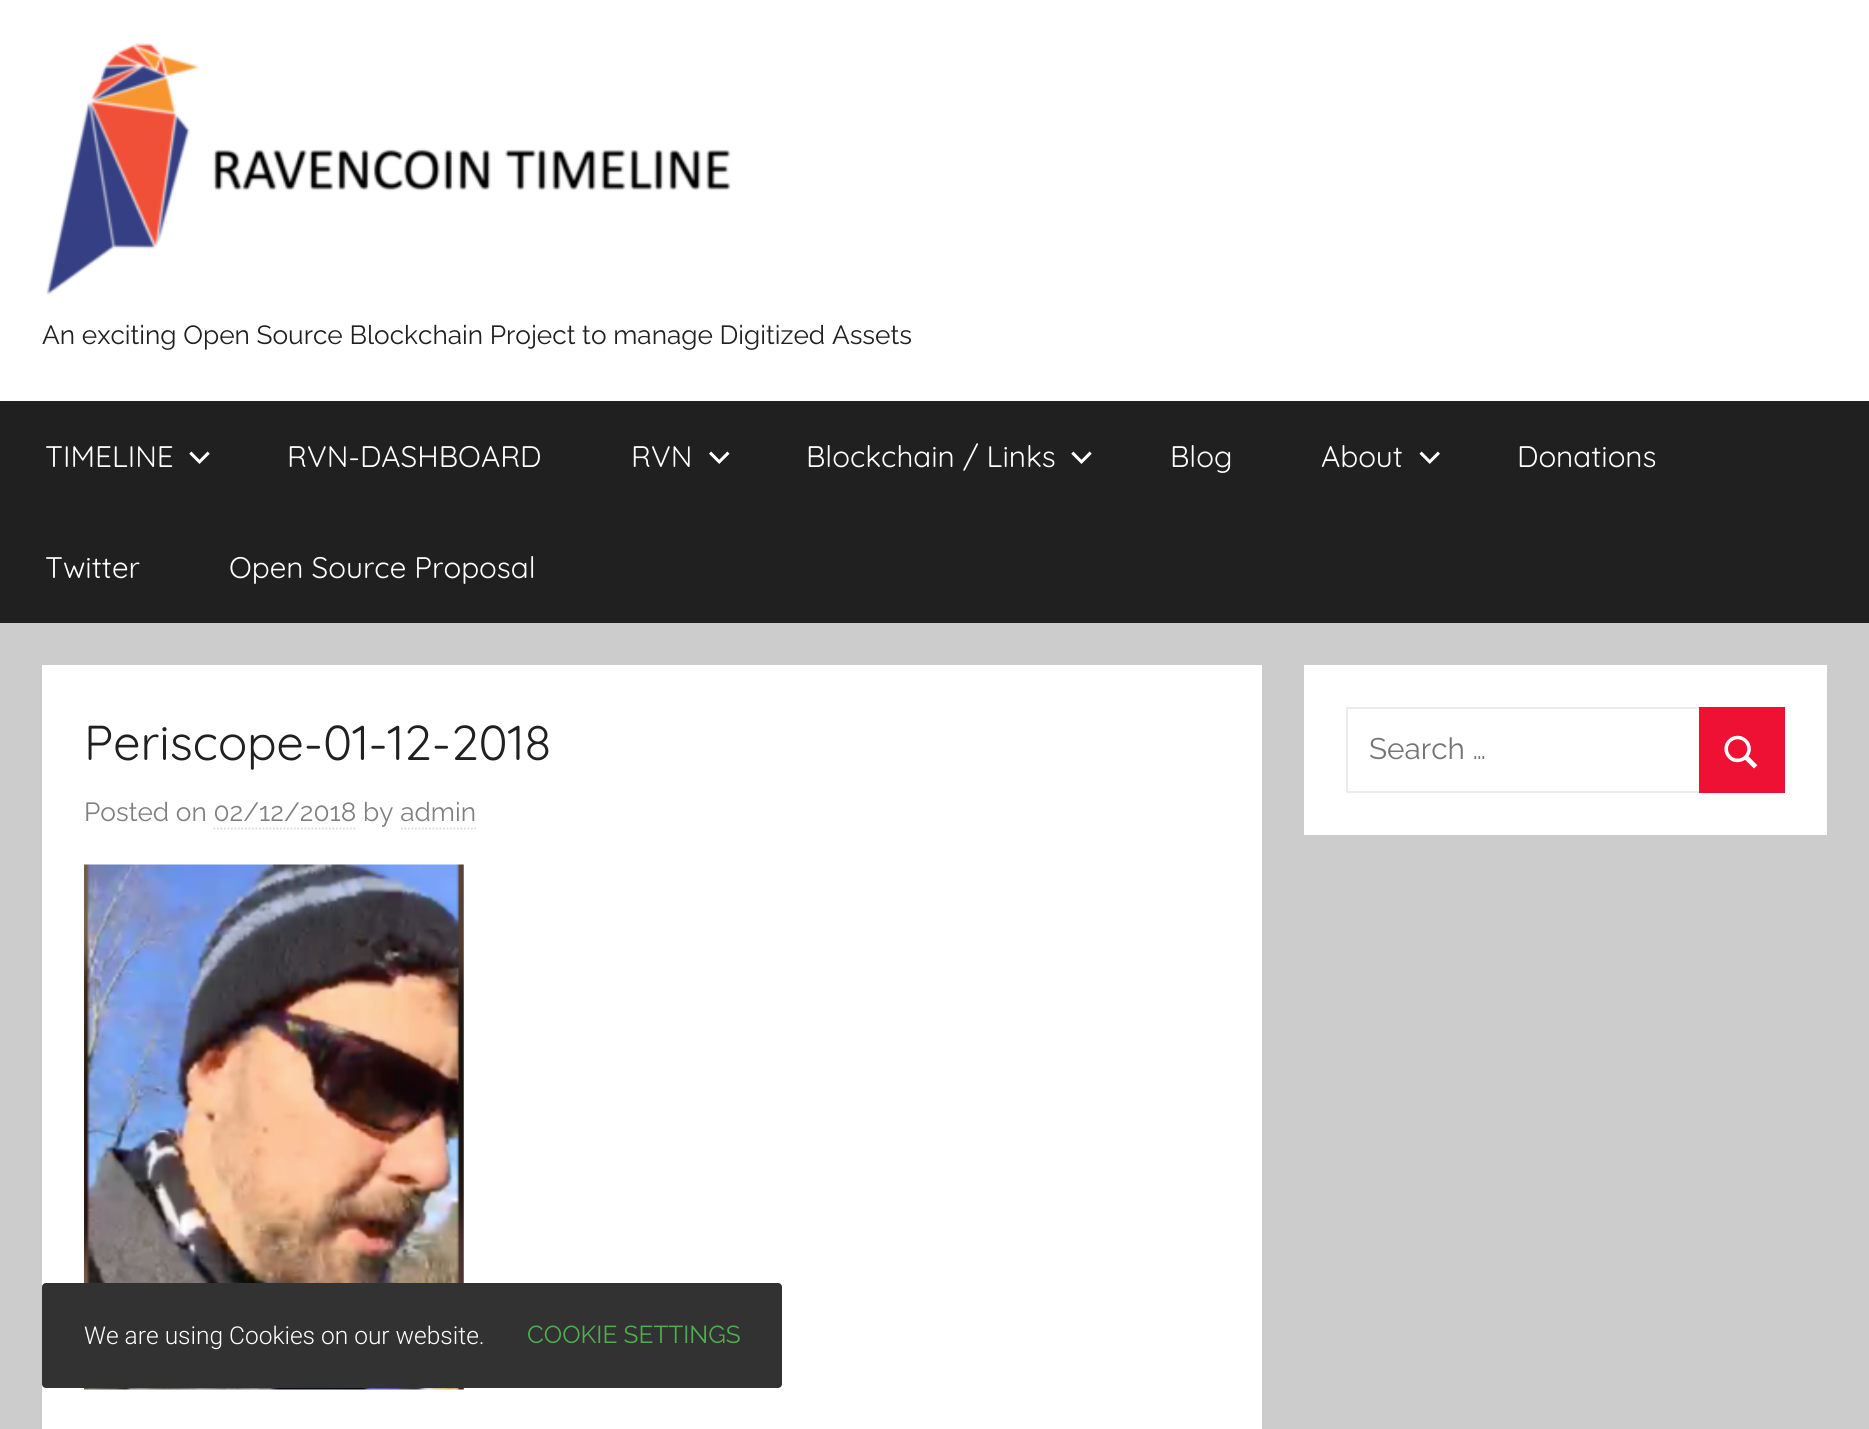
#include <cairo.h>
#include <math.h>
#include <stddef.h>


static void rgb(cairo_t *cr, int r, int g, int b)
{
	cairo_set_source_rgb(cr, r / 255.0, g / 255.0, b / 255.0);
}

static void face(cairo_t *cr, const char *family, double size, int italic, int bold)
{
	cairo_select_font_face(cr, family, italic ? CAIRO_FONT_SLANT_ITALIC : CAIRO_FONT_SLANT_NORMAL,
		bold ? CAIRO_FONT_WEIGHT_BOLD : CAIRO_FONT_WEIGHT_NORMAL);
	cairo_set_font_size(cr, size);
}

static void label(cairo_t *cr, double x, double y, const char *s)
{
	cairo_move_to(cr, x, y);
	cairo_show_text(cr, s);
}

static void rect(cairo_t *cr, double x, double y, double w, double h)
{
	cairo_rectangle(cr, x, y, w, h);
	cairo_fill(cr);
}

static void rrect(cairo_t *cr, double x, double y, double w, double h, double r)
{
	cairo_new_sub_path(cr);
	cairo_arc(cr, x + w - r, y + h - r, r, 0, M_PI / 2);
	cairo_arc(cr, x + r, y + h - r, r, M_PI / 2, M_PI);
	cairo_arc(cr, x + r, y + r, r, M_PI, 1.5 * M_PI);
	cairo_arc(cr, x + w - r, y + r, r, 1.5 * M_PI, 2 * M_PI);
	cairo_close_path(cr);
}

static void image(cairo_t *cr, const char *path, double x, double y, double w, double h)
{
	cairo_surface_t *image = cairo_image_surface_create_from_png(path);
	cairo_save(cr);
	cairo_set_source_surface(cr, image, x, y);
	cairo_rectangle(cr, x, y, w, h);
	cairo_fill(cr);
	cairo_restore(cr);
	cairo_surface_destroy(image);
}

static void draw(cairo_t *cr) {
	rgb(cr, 204, 204, 204);
	cairo_paint(cr);
	rgb(cr, 255, 255, 255);
	rect(cr, 0, 0, 1869, 401);
	image(cr, "image0.png", 46, 43, 685, 252);
	face(cr, "Raleway Thin", 26.25, 0, 0);
	rgb(cr, 32, 32, 32);
	label(cr, 42, 344, "An exciting Open Source Blockchain Project to manage Digitized Assets");
	rect(cr, 0, 401, 1869, 222);
	face(cr, "Quicksand Light", 29.75, 0, 0);
	rgb(cr, 255, 255, 255);
	label(cr, 45, 467, "TIMELINE");
	image(cr, "image1.png", 189, 451, 21, 13);
	label(cr, 287, 467, "RVN-DASHBOARD");
	label(cr, 631, 467, "RVN");
	image(cr, "image2.png", 709, 451, 21, 13);
	label(cr, 806, 467, "Blockchain / Links");
	image(cr, "image1.png", 1071, 451, 21, 13);
	label(cr, 1170, 467, "Blog");
	label(cr, 1321, 467, "About");
	image(cr, "image3.png", 1419, 451, 21, 13);
	label(cr, 1517, 467, "Donations");
	label(cr, 45, 578, "Twitter");
	label(cr, 229, 578, "Open Source Proposal");
	rect(cr, 42, 665, 1220, 764);
	face(cr, "Quicksand Light", 49, 0, 0);
	rgb(cr, 32, 32, 32);
	label(cr, 84, 760, "Periscope-01-12-2018");
	face(cr, "Raleway Thin", 26.25, 0, 0);
	rgb(cr, 128, 128, 128);
	label(cr, 84, 821, "Posted on 02/12/2018 by admin");
	cairo_new_path(cr);
	cairo_move_to(cr, 213.5, 828.5);
	cairo_line_to(cr, 357, 828.5);
	rgb(cr, 217, 217, 217);
	cairo_set_line_width(cr, 1.8);
	cairo_set_dash(cr, (double[]){1.75, 1.75}, 2, 0);
	cairo_stroke(cr);
	cairo_new_path(cr);
	cairo_move_to(cr, 401, 828.5);
	cairo_line_to(cr, 476, 828.5);
	cairo_stroke(cr);
	image(cr, "image4.png", 84, 864, 380, 526);
	rgb(cr, 255, 255, 255);
	rect(cr, 1304, 665, 523, 170);
	cairo_rectangle(cr, 1347, 708, 437, 84);
	rgb(cr, 236, 236, 236);
	cairo_set_line_width(cr, 2);
	cairo_set_dash(cr, NULL, 0, 0);
	cairo_stroke(cr);
	face(cr, "Raleway Thin", 29.75, 0, 0);
	rgb(cr, 117, 117, 117);
	label(cr, 1369, 759, "Search …");
	rgb(cr, 238, 17, 51);
	rect(cr, 1699, 707, 86, 86);
	image(cr, "image5.png", 1724, 735, 34, 34);
	rgb(cr, 50, 50, 50);
	rrect(cr, 42, 1283, 740, 105, 4);
	cairo_fill(cr);
	face(cr, "Roboto Light", 24.5, 0, 0);
	rgb(cr, 255, 255, 255);
	label(cr, 84, 1344, "We are using Cookies on our website.");
	face(cr, "Raleway Thin", 24.5, 0, 0);
	rgb(cr, 76, 175, 80);
	label(cr, 527, 1343, "COOKIE SETTINGS");
}

int main(void) {
	cairo_surface_t *surface = cairo_image_surface_create(CAIRO_FORMAT_RGB24, 1869, 1429);
	cairo_t *cr = cairo_create(surface);
	cairo_font_options_t *options = cairo_font_options_create();
	cairo_font_options_set_hint_metrics(options, CAIRO_HINT_METRICS_OFF);
	cairo_font_options_set_hint_style(options, CAIRO_HINT_STYLE_NONE);
	cairo_set_font_options(cr, options);
	cairo_set_miter_limit(cr, 4);
	draw(cr);
	cairo_surface_write_to_png(surface, "render.png");
	cairo_font_options_destroy(options);
	cairo_destroy(cr);
	cairo_surface_destroy(surface);
	return 0;
}
